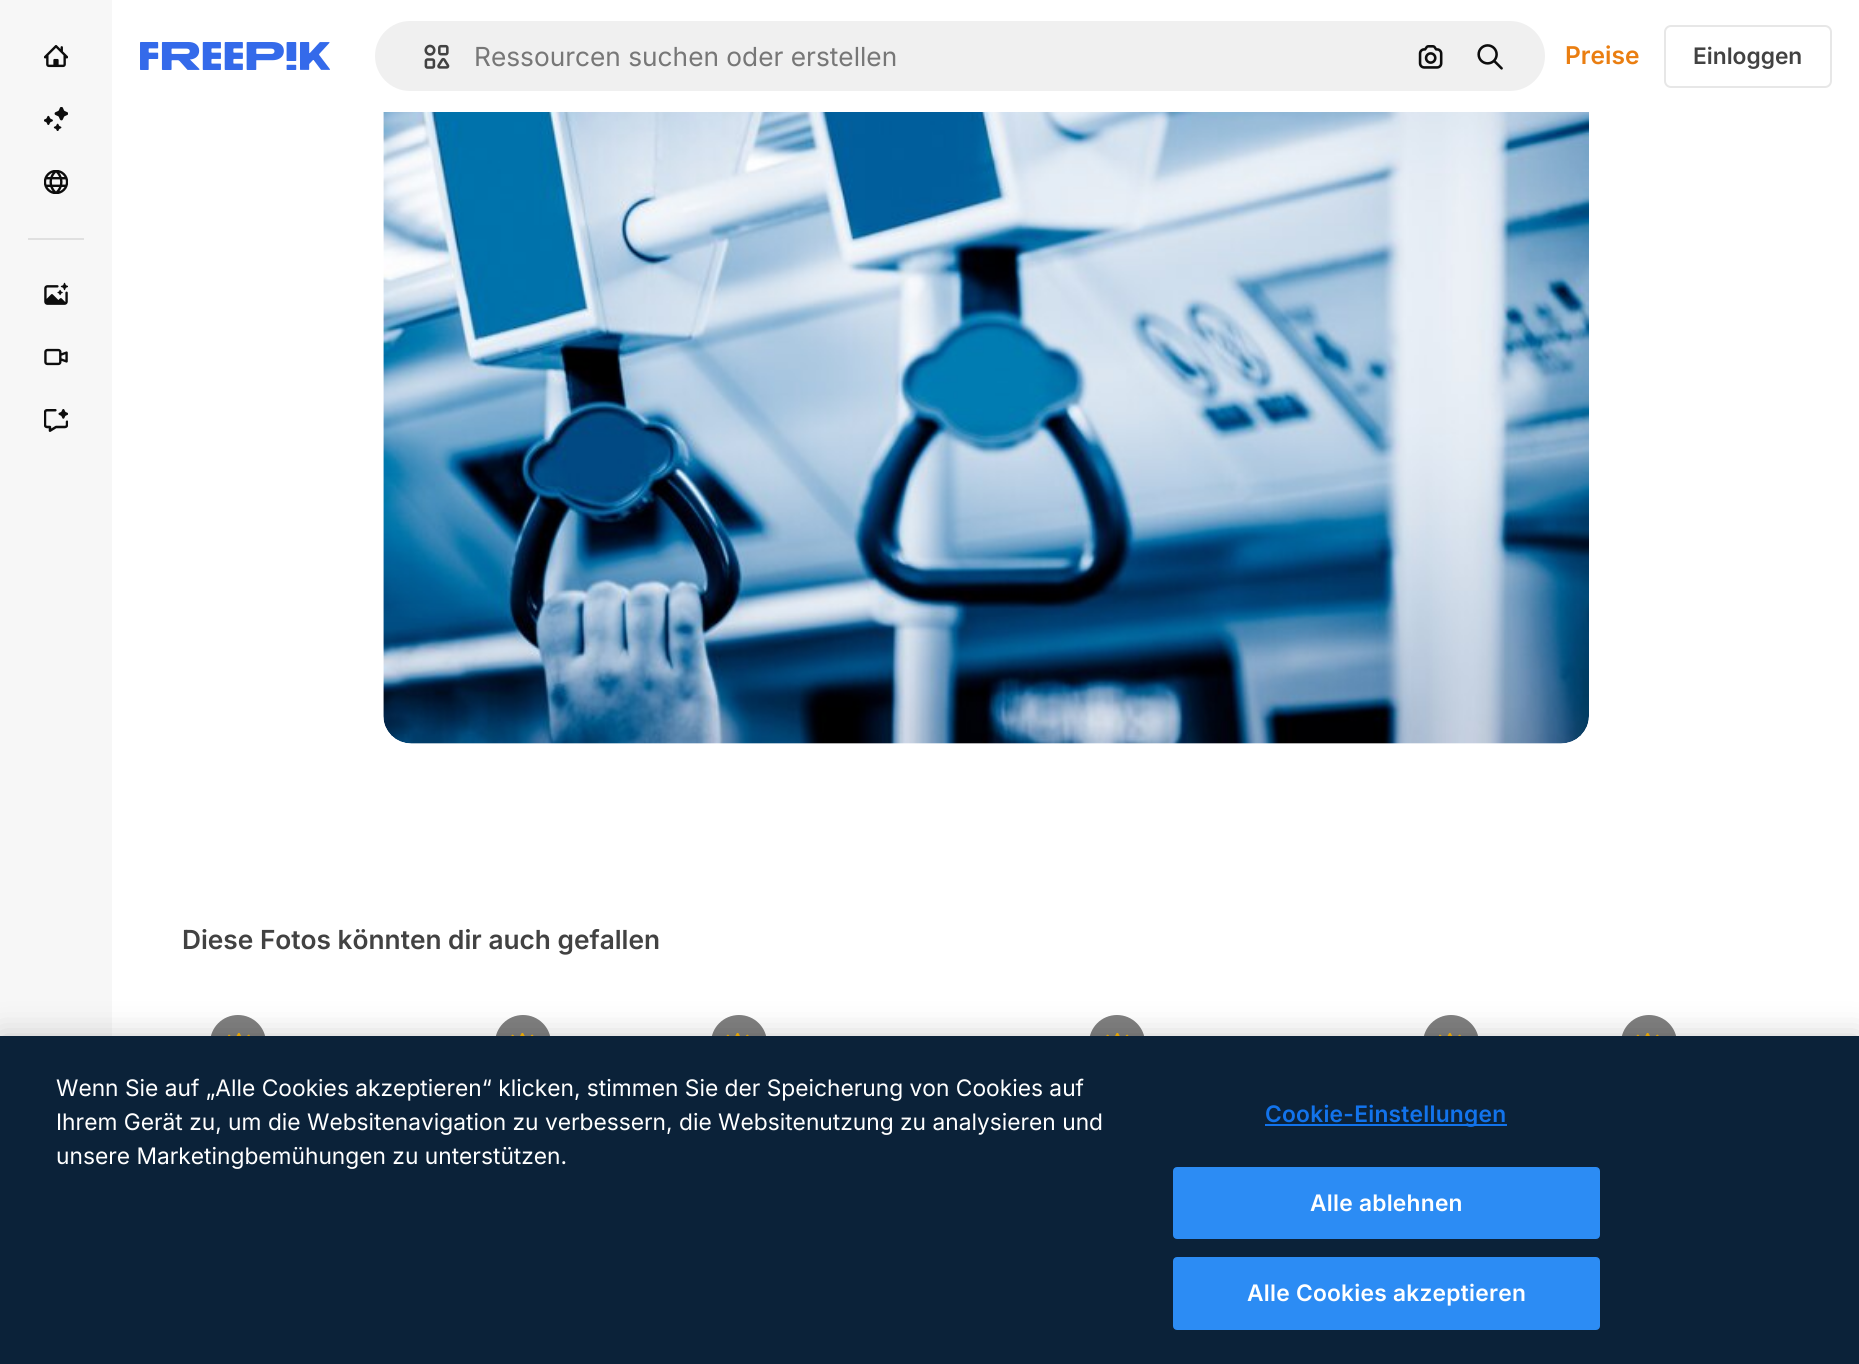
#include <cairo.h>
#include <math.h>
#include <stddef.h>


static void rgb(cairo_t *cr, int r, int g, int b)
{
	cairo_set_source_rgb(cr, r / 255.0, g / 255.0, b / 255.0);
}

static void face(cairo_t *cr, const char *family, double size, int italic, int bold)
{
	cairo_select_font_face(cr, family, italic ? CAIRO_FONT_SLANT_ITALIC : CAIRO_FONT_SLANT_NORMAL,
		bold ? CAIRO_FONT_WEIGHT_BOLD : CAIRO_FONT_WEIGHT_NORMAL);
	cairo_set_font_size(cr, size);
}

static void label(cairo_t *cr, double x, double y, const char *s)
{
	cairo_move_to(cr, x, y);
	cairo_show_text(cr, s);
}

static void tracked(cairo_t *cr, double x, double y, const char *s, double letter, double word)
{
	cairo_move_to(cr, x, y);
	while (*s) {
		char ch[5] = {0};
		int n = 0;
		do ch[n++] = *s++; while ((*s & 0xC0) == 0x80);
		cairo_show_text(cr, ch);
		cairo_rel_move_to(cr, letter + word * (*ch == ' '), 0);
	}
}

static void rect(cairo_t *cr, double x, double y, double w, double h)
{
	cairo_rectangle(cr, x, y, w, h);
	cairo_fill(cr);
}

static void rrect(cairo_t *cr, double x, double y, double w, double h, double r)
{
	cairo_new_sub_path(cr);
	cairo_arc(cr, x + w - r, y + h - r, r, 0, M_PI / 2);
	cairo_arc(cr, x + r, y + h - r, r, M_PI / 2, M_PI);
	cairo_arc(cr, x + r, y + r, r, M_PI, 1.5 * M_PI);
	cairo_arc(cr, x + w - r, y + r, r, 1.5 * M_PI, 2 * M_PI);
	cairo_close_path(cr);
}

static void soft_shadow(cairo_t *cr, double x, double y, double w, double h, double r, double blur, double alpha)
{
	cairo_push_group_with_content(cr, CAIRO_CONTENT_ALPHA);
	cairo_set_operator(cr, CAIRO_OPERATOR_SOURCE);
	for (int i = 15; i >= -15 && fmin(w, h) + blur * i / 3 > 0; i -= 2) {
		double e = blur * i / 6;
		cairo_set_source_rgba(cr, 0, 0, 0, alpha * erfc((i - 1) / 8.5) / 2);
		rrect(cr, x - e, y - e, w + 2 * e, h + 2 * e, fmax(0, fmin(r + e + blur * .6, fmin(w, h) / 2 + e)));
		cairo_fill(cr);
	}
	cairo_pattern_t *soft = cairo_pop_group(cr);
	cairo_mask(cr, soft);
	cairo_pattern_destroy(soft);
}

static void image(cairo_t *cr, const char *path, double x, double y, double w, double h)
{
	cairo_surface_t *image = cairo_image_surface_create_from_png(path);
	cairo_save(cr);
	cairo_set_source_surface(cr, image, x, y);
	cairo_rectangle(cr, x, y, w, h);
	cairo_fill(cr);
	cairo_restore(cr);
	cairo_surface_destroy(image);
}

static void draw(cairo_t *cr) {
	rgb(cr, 255, 255, 255);
	cairo_paint(cr);
	rgb(cr, 247, 247, 247);
	rect(cr, 0, 0, 112, 1036);
	image(cr, "image0.png", 44, 45, 24, 23);
	image(cr, "image1.png", 44, 107, 24, 24);
	image(cr, "image2.png", 44, 170, 24, 24);
	rgb(cr, 224, 224, 224);
	rect(cr, 28, 238, 56, 2);
	image(cr, "image3.png", 44, 282, 24, 23);
	image(cr, "image4.png", 44, 348, 24, 18);
	image(cr, "image5.png", 44, 409, 24, 23);
	image(cr, "image6.png", 140, 42, 190, 28);
	rgb(cr, 240, 240, 240);
	rrect(cr, 374, 20, 1172, 72, 36);
	cairo_fill_preserve(cr);
	rgb(cr, 255, 255, 255);
	cairo_stroke(cr);
	image(cr, "image7.png", 424, 44, 26, 25);
	face(cr, "Inter", 26.25, 0, 0);
	rgb(cr, 119, 119, 119);
	label(cr, 474, 66, "Ressourcen suchen oder erstellen");
	image(cr, "image8.png", 1418, 45, 25, 24);
	image(cr, "image9.png", 1477, 44, 26, 26);
	face(cr, "Inter SemiBold", 24.5, 0, 0);
	rgb(cr, 234, 126, 17);
	label(cr, 1565, 64, "Preise");
	rrect(cr, 1665, 26, 166, 61, 6);
	rgb(cr, 231, 231, 231);
	cairo_stroke(cr);
	face(cr, "Inter SemiBold", 22.75, 0, 0);
	rgb(cr, 66, 66, 66);
	label(cr, 1693, 64, "Einloggen");
	image(cr, "image10.png", 383, 112, 1206, 632);
	face(cr, "Inter SemiBold", 26.25, 0, 0);
	label(cr, 182, 949, "Diese Fotos könnten dir auch gefallen");
	rgb(cr, 128, 128, 128);
	cairo_new_path(cr);
	cairo_arc(cr, 238, 1043, 28, 0, 2 * M_PI);
	cairo_fill(cr);
	image(cr, "image11.png", 228, 1033, 22, 3);
	cairo_arc(cr, 523, 1043, 28, 0, 2 * M_PI);
	cairo_fill(cr);
	image(cr, "image12.png", 511, 1033, 23, 3);
	cairo_arc(cr, 739, 1043, 28, 0, 2 * M_PI);
	cairo_fill(cr);
	image(cr, "image13.png", 726, 1033, 23, 3);
	cairo_arc(cr, 1117, 1043, 28, 0, 2 * M_PI);
	cairo_fill(cr);
	image(cr, "image12.png", 1106, 1033, 23, 3);
	cairo_arc(cr, 1451, 1043, 28, 0, 2 * M_PI);
	cairo_fill(cr);
	image(cr, "image11.png", 1439, 1033, 22, 3);
	cairo_arc(cr, 1649, 1043, 28, 0, 2 * M_PI);
	cairo_fill(cr);
	image(cr, "image13.png", 1636, 1033, 23, 3);
	rgb(cr, 0, 0, 0);
	soft_shadow(cr, 0, 1036, 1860, 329, 0, 16, 0.2);
	rgb(cr, 11, 34, 57);
	rect(cr, 0, 1036, 1859, 328);
	face(cr, "Inter", 22.75, 0, 0);
	rgb(cr, 255, 255, 255);
	label(cr, 56, 1096, "Wenn Sie auf „Alle Cookies akzeptieren“ klicken, stimmen Sie der Speicherung von Cookies auf");
	label(cr, 56, 1130, "Ihrem Gerät zu, um die Websitenavigation zu verbessern, die Websitenutzung zu analysieren und");
	label(cr, 56, 1164, "unsere Marketingbemühungen zu unterstützen.");
	rgb(cr, 18, 115, 235);
	rect(cr, 1265, 1124, 242, 2);
	face(cr, "Inter SemiBold", 22.75, 0, 0);
	tracked(cr, 1265, 1122, "Cookie-Einstellungen", 0.25, 0);
	rgb(cr, 44, 140, 244);
	rrect(cr, 1174, 1168, 425, 70, 3);
	cairo_fill_preserve(cr);
	cairo_stroke(cr);
	rgb(cr, 255, 255, 255);
	tracked(cr, 1310, 1211, "Alle ablehnen", 0.25, 0);
	rgb(cr, 44, 140, 244);
	rrect(cr, 1174, 1258, 425, 71, 3);
	cairo_fill_preserve(cr);
	cairo_stroke(cr);
	rgb(cr, 255, 255, 255);
	tracked(cr, 1247, 1301, "Alle Cookies akzeptieren", 0.25, 0);
}

int main(void) {
	cairo_surface_t *surface = cairo_image_surface_create(CAIRO_FORMAT_RGB24, 1859, 1364);
	cairo_t *cr = cairo_create(surface);
	cairo_font_options_t *options = cairo_font_options_create();
	cairo_font_options_set_hint_metrics(options, CAIRO_HINT_METRICS_OFF);
	cairo_font_options_set_hint_style(options, CAIRO_HINT_STYLE_NONE);
	cairo_set_font_options(cr, options);
	cairo_set_miter_limit(cr, 4);
	draw(cr);
	cairo_surface_write_to_png(surface, "render.png");
	cairo_font_options_destroy(options);
	cairo_destroy(cr);
	cairo_surface_destroy(surface);
	return 0;
}
